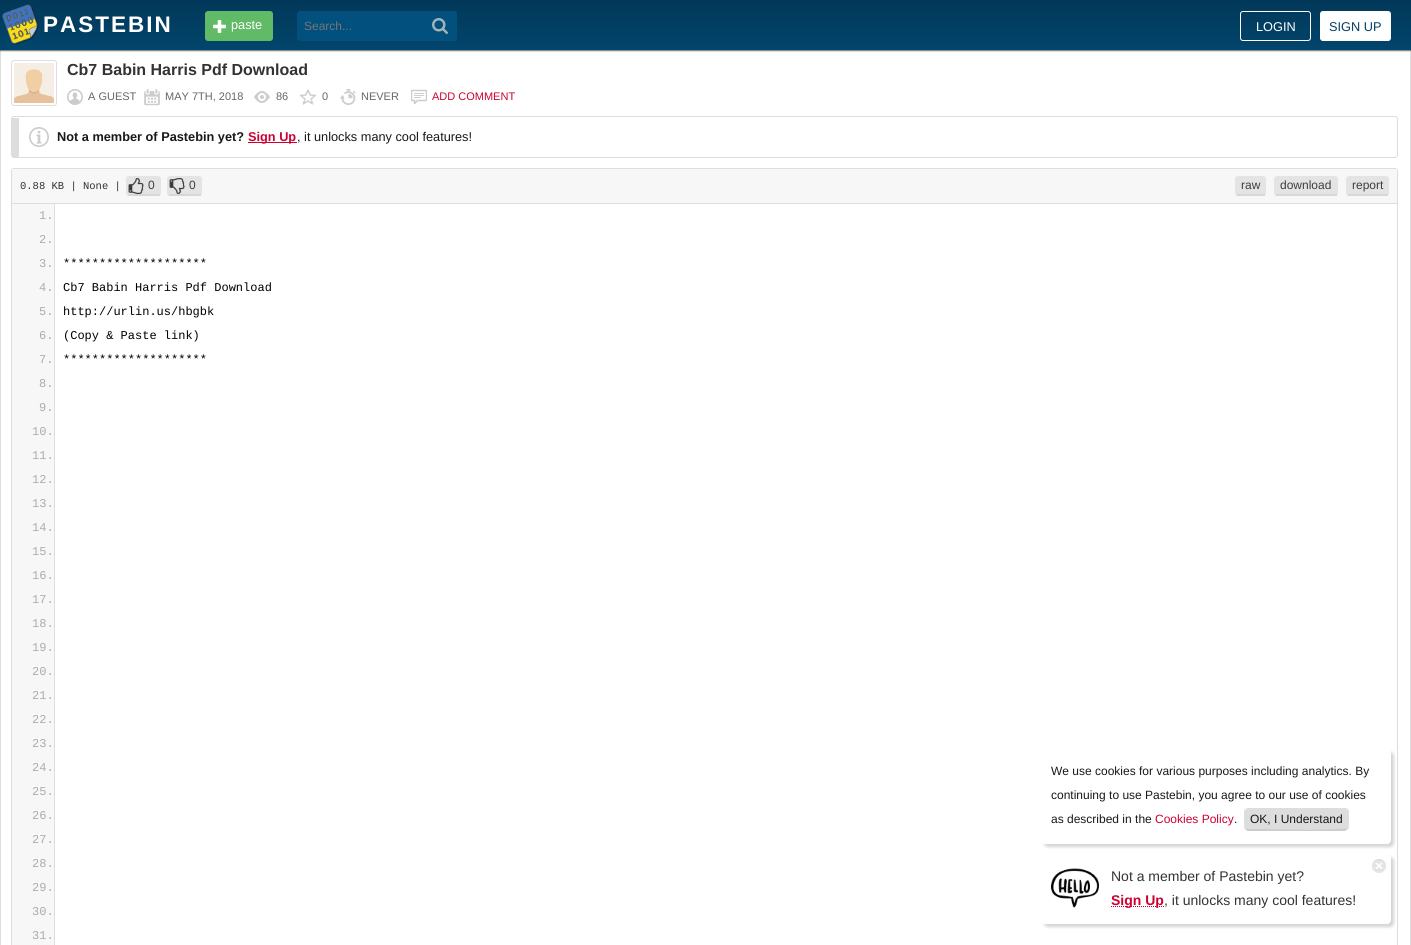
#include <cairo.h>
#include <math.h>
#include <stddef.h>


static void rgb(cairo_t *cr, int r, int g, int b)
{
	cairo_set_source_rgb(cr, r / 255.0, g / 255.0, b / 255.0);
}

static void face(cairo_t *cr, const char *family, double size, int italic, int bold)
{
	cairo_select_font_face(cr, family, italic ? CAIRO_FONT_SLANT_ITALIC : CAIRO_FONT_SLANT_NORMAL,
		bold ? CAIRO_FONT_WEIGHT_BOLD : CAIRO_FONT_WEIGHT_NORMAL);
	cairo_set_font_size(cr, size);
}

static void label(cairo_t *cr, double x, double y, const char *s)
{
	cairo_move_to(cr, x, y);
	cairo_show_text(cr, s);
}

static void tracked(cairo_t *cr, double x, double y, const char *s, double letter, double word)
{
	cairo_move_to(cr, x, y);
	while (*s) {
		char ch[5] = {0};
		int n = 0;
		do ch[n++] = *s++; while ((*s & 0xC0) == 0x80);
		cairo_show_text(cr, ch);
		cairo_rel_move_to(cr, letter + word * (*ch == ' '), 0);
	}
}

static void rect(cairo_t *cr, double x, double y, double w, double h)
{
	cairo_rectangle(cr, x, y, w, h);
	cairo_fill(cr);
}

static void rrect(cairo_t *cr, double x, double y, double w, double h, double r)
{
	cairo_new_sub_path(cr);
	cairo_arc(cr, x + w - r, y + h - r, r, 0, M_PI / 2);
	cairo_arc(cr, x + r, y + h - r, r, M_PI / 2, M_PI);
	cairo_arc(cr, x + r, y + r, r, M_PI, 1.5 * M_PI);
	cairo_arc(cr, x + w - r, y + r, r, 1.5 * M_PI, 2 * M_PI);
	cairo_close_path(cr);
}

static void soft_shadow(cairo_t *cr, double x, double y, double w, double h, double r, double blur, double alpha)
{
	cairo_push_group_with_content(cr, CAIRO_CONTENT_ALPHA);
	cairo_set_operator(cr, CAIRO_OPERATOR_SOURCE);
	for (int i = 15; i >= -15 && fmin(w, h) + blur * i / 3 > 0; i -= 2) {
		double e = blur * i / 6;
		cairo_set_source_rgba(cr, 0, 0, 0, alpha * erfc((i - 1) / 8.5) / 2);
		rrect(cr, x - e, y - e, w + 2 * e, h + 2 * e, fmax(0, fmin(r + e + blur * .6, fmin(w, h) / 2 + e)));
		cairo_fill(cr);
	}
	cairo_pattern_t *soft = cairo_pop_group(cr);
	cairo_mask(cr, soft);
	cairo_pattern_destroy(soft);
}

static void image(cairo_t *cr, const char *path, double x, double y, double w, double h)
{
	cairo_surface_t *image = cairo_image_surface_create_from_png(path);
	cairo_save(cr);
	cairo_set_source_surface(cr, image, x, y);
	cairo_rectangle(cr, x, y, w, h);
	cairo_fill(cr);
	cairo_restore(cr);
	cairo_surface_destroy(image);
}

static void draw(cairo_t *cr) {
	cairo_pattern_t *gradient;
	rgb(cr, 255, 255, 255);
	cairo_paint(cr);
	rgb(cr, 221, 221, 221);
	cairo_set_fill_rule(cr, CAIRO_FILL_RULE_EVEN_ODD);
	cairo_new_path(cr);
	cairo_move_to(cr, 0, 0);
	cairo_line_to(cr, 1411, 0);
	cairo_line_to(cr, 1411, 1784);
	cairo_curve_to(cr, 1411, 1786, 1410, 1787, 1408, 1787);
	cairo_line_to(cr, 3, 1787);
	cairo_curve_to(cr, 1, 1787, 0, 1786, 0, 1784);
	cairo_close_path(cr);
	cairo_move_to(cr, 1, 0);
	cairo_line_to(cr, 1410, 0);
	cairo_line_to(cr, 1410, 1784);
	cairo_curve_to(cr, 1410, 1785, 1409, 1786, 1408, 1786);
	cairo_line_to(cr, 3, 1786);
	cairo_curve_to(cr, 2, 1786, 1, 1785, 1, 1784);
	cairo_close_path(cr);
	cairo_fill(cr);
	rgb(cr, 0, 0, 0);
	soft_shadow(cr, 0, 1, 1411, 50, 0, 0.5, 0.52);
	gradient = cairo_pattern_create_linear(706, 0, 706, 50);
	cairo_pattern_add_color_stop_rgba(gradient, 0, 0.008, 0.22, 0.349, 1);
	cairo_pattern_add_color_stop_rgba(gradient, 1, 0.008, 0.271, 0.424, 1);
	cairo_set_source(cr, gradient);
	cairo_pattern_destroy(gradient);
	rect(cr, 0, 0, 1411, 50);
	image(cr, "image0.png", 2, 4, 37, 41);
	face(cr, "Liberation Sans", 22.5, 0, 1);
	rgb(cr, 255, 255, 255);
	tracked(cr, 43, 32, "PASTEBIN", 2, 0);
	rgb(cr, 97, 186, 101);
	rrect(cr, 205, 11, 68, 30, 3);
	cairo_fill(cr);
	image(cr, "image1.png", 213, 20, 13, 13);
	face(cr, "Liberation Sans", 12.75, 0, 0);
	rgb(cr, 255, 255, 255);
	label(cr, 231, 29, "paste");
	rgb(cr, 2, 80, 125);
	rrect(cr, 297, 11, 160, 30, 3);
	cairo_fill(cr);
	face(cr, "Liberation Sans", 12, 0, 0);
	rgb(cr, 117, 117, 117);
	label(cr, 304, 30, "Search...");
	image(cr, "image2.png", 432, 18, 16, 16);
	rrect(cr, 1240.5, 11.5, 70, 29, 2.5);
	rgb(cr, 255, 255, 255);
	cairo_set_line_width(cr, 1);
	cairo_stroke(cr);
	face(cr, "Liberation Sans", 12.75, 0, 0);
	label(cr, 1256, 31, "LOGIN");
	rrect(cr, 1320.5, 11.5, 70, 29, 2.5);
	cairo_fill_preserve(cr);
	cairo_stroke(cr);
	rgb(cr, 2, 63, 99);
	label(cr, 1329, 31, "SIGN UP");
	rrect(cr, 11.5, 60.5, 45, 45, 2.5);
	rgb(cr, 221, 221, 221);
	cairo_stroke(cr);
	image(cr, "image3.png", 14, 63, 40, 40);
	face(cr, "Liberation Sans", 16, 0, 1);
	rgb(cr, 51, 51, 51);
	label(cr, 67, 75, "Cb7 Babin Harris Pdf Download");
	image(cr, "image4.png", 67, 89, 16, 16);
	face(cr, "Liberation Sans", 11, 0, 0);
	rgb(cr, 102, 102, 102);
	label(cr, 88, 100, "A GUEST");
	image(cr, "image5.png", 144, 89, 16, 17);
	label(cr, 165, 100, "MAY 7TH, 2018");
	image(cr, "image6.png", 254, 91, 17, 12);
	label(cr, 276, 100, "86");
	image(cr, "image7.png", 300, 89, 17, 16);
	label(cr, 322, 100, "0");
	image(cr, "image8.png", 340, 89, 16, 16);
	label(cr, 361, 100, "NEVER");
	image(cr, "image9.png", 411, 89, 16, 16);
	rgb(cr, 204, 0, 51);
	label(cr, 432, 100, "ADD COMMENT");
	image(cr, "image10.png", 29, 127, 20, 20);
	rrect(cr, 11.5, 116.5, 1386, 41, 2.5);
	rgb(cr, 221, 221, 221);
	cairo_stroke(cr);
	rect(cr, 12, 118, 7, 39);
	face(cr, "Liberation Sans", 12.75, 0, 1);
	rgb(cr, 24, 24, 24);
	label(cr, 57, 141, "Not a member of Pastebin yet?");
	rgb(cr, 204, 0, 51);
	rect(cr, 248, 142, 49, 1);
	label(cr, 248, 141, "Sign Up");
	face(cr, "Liberation Sans", 12.75, 0, 0);
	rgb(cr, 24, 24, 24);
	label(cr, 297, 141, ", it unlocks many cool features!");
	rrect(cr, 11.5, 168.5, 1386, 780, 2.5);
	rgb(cr, 221, 221, 221);
	cairo_stroke(cr);
	rgb(cr, 247, 247, 247);
	rect(cr, 12, 169, 1385, 34);
	rgb(cr, 221, 221, 221);
	rect(cr, 12, 203, 1385, 1);
	face(cr, "Liberation Mono", 10.5, 0, 0);
	rgb(cr, 51, 51, 51);
	label(cr, 20, 189, "0.88 KB | None |");
	rgb(cr, 228, 228, 228);
	rrect(cr, 126, 176, 35, 20, 3);
	cairo_fill(cr);
	image(cr, "image11.png", 128, 178, 16, 16);
	rgb(cr, 215, 215, 215);
	rect(cr, 128, 194, 32, 2);
	face(cr, "Liberation Sans", 12, 0, 0);
	rgb(cr, 62, 62, 62);
	label(cr, 148, 189, "0");
	rgb(cr, 228, 228, 228);
	rrect(cr, 167, 176, 35, 20, 3);
	cairo_fill(cr);
	image(cr, "image12.png", 169, 178, 17, 16);
	rgb(cr, 215, 215, 215);
	rect(cr, 169, 194, 32, 2);
	rgb(cr, 62, 62, 62);
	label(cr, 189, 189, "0");
	rgb(cr, 228, 228, 228);
	rrect(cr, 1235, 176, 31, 20, 3);
	cairo_fill(cr);
	rgb(cr, 215, 215, 215);
	rect(cr, 1237, 194, 28, 2);
	rgb(cr, 62, 62, 62);
	label(cr, 1241, 189, "raw");
	rgb(cr, 228, 228, 228);
	rrect(cr, 1274, 176, 64, 20, 3);
	cairo_fill(cr);
	rgb(cr, 215, 215, 215);
	rect(cr, 1276, 194, 61, 2);
	rgb(cr, 62, 62, 62);
	label(cr, 1280, 189, "download");
	rgb(cr, 228, 228, 228);
	rrect(cr, 1346, 176, 43, 20, 3);
	cairo_fill(cr);
	rgb(cr, 215, 215, 215);
	rect(cr, 1348, 194, 40, 2);
	rgb(cr, 62, 62, 62);
	label(cr, 1352, 189, "report");
	rgb(cr, 247, 247, 247);
	rect(cr, 12, 204, 42, 741);
	face(cr, "Liberation Mono", 12, 0, 0);
	rgb(cr, 172, 172, 172);
	label(cr, 39, 219, "1.");
	rgb(cr, 221, 221, 221);
	rect(cr, 54, 204, 1, 741);
	rgb(cr, 172, 172, 172);
	label(cr, 39, 243, "2.");
	label(cr, 39, 267, "3.");
	rgb(cr, 0, 0, 0);
	label(cr, 63, 267, "********************");
	rgb(cr, 172, 172, 172);
	label(cr, 39, 291, "4.");
	rgb(cr, 0, 0, 0);
	label(cr, 63, 291, "Cb7 Babin Harris Pdf Download");
	rgb(cr, 172, 172, 172);
	label(cr, 39, 315, "5.");
	rgb(cr, 0, 0, 0);
	label(cr, 63, 315, "http://urlin.us/hbgbk");
	rgb(cr, 172, 172, 172);
	label(cr, 39, 339, "6.");
	rgb(cr, 0, 0, 0);
	label(cr, 63, 339, "(Copy & Paste link)");
	rgb(cr, 172, 172, 172);
	label(cr, 39, 363, "7.");
	rgb(cr, 0, 0, 0);
	label(cr, 63, 363, "********************");
	rgb(cr, 172, 172, 172);
	label(cr, 39, 387, "8.");
	label(cr, 39, 411, "9.");
	label(cr, 32, 435, "10.");
	label(cr, 32, 459, "11.");
	label(cr, 32, 483, "12.");
	label(cr, 32, 507, "13.");
	label(cr, 32, 531, "14.");
	label(cr, 32, 555, "15.");
	label(cr, 32, 579, "16.");
	label(cr, 32, 603, "17.");
	label(cr, 32, 627, "18.");
	label(cr, 32, 651, "19.");
	label(cr, 32, 675, "20.");
	label(cr, 32, 699, "21.");
	label(cr, 32, 723, "22.");
	label(cr, 32, 747, "23.");
	label(cr, 32, 771, "24.");
	label(cr, 32, 795, "25.");
	label(cr, 32, 819, "26.");
	label(cr, 32, 843, "27.");
	label(cr, 32, 867, "28.");
	label(cr, 32, 891, "29.");
	label(cr, 32, 915, "30.");
	label(cr, 32, 939, "31.");
	rgb(cr, 0, 0, 0);
	soft_shadow(cr, 1044, 752, 350, 95, 4, 1.5, 0.17);
	rgb(cr, 255, 255, 255);
	rrect(cr, 1041, 749, 350, 95, 4);
	cairo_fill(cr);
	face(cr, "Liberation Sans", 12, 0, 0);
	rgb(cr, 24, 24, 24);
	label(cr, 1051, 775, "We use cookies for various purposes including analytics. By");
	label(cr, 1051, 799, "continuing to use Pastebin, you agree to our use of cookies");
	label(cr, 1051, 823, "as described in the");
	rgb(cr, 204, 0, 51);
	label(cr, 1155, 823, "Cookies Policy");
	rgb(cr, 24, 24, 24);
	label(cr, 1234, 823, ".");
	rgb(cr, 221, 221, 221);
	cairo_set_fill_rule(cr, CAIRO_FILL_RULE_WINDING);
	cairo_new_path(cr);
	cairo_move_to(cr, 1248, 809);
	cairo_line_to(cr, 1345, 809);
	cairo_curve_to(cr, 1347, 809, 1348, 810, 1348, 812);
	cairo_line_to(cr, 1348, 827);
	cairo_curve_to(cr, 1348, 828, 1347, 829, 1345, 829);
	cairo_line_to(cr, 1248, 829);
	cairo_curve_to(cr, 1246, 829, 1245, 828, 1245, 827);
	cairo_line_to(cr, 1245, 812);
	cairo_curve_to(cr, 1245, 810, 1246, 809, 1248, 809);
	cairo_close_path(cr);
	cairo_fill(cr);
	rgb(cr, 24, 24, 24);
	label(cr, 1250, 823, "OK, I Understand");
	rgb(cr, 221, 221, 221);
	cairo_new_path(cr);
	cairo_move_to(cr, 1248, 808);
	cairo_line_to(cr, 1245, 809);
	cairo_line_to(cr, 1246, 810);
	cairo_line_to(cr, 1248, 809);
	cairo_line_to(cr, 1345, 809);
	cairo_line_to(cr, 1347, 810);
	cairo_line_to(cr, 1348, 809);
	cairo_line_to(cr, 1345, 808);
	cairo_close_path(cr);
	cairo_fill(cr);
	cairo_new_path(cr);
	cairo_move_to(cr, 1349, 827);
	cairo_line_to(cr, 1349, 812);
	cairo_curve_to(cr, 1349, 811, 1348.5, 810, 1348, 809);
	cairo_line_to(cr, 1347, 810);
	cairo_curve_to(cr, 1348.5, 811, 1348, 817.5, 1348, 819.5);
	cairo_curve_to(cr, 1348, 821, 1348.5, 827, 1347.5, 828);
	cairo_line_to(cr, 1348, 829.5);
	cairo_curve_to(cr, 1348.5, 828.5, 1349, 828, 1349, 827);
	cairo_close_path(cr);
	cairo_fill(cr);
	rgb(cr, 204, 204, 204);
	cairo_new_path(cr);
	cairo_move_to(cr, 1248, 831);
	cairo_line_to(cr, 1345, 831);
	cairo_line_to(cr, 1348, 829);
	cairo_line_to(cr, 1347, 828);
	cairo_curve_to(cr, 1345, 830, 1273, 829, 1264, 829);
	cairo_line_to(cr, 1248, 829);
	cairo_line_to(cr, 1245, 828);
	cairo_line_to(cr, 1245, 829);
	cairo_curve_to(cr, 1246, 830, 1247, 831, 1248, 831);
	cairo_close_path(cr);
	cairo_fill(cr);
	rgb(cr, 221, 221, 221);
	cairo_new_path(cr);
	cairo_move_to(cr, 1244, 812);
	cairo_line_to(cr, 1244, 827);
	cairo_curve_to(cr, 1244, 828, 1244.5, 828.5, 1245, 829.5);
	cairo_line_to(cr, 1245.5, 828);
	cairo_curve_to(cr, 1244.5, 827, 1245, 821, 1245, 819.5);
	cairo_curve_to(cr, 1245, 817.5, 1244.5, 811, 1246, 810);
	cairo_line_to(cr, 1245, 809);
	cairo_curve_to(cr, 1244.5, 810, 1244, 811, 1244, 812);
	cairo_close_path(cr);
	cairo_fill(cr);
	rgb(cr, 0, 0, 0);
	soft_shadow(cr, 1044, 857, 350, 70, 4, 1.5, 0.17);
	rgb(cr, 255, 255, 255);
	rrect(cr, 1041, 854, 350, 70, 4);
	cairo_fill(cr);
	image(cr, "image13.png", 1372, 859, 14, 14);
	image(cr, "image14.png", 1051, 868, 48, 40);
	face(cr, "Liberation Sans", 14, 0, 0);
	rgb(cr, 51, 51, 51);
	label(cr, 1111, 881, "Not a member of Pastebin yet?");
	cairo_new_path(cr);
	cairo_move_to(cr, 1111, 906.5);
	cairo_line_to(cr, 1164, 906.5);
	rgb(cr, 204, 0, 51);
	cairo_set_dash(cr, (double[]){1, 1}, 2, 0);
	cairo_stroke(cr);
	face(cr, "Liberation Sans", 14, 0, 1);
	label(cr, 1111, 905, "Sign Up");
	face(cr, "Liberation Sans", 14, 0, 0);
	rgb(cr, 51, 51, 51);
	label(cr, 1164, 905, ", it unlocks many cool features!");
}

int main(void) {
	cairo_surface_t *surface = cairo_image_surface_create(CAIRO_FORMAT_RGB24, 1411, 945);
	cairo_t *cr = cairo_create(surface);
	cairo_font_options_t *options = cairo_font_options_create();
	cairo_font_options_set_hint_metrics(options, CAIRO_HINT_METRICS_OFF);
	cairo_font_options_set_hint_style(options, CAIRO_HINT_STYLE_NONE);
	cairo_set_font_options(cr, options);
	cairo_set_miter_limit(cr, 4);
	draw(cr);
	cairo_surface_write_to_png(surface, "render.png");
	cairo_font_options_destroy(options);
	cairo_destroy(cr);
	cairo_surface_destroy(surface);
	return 0;
}
